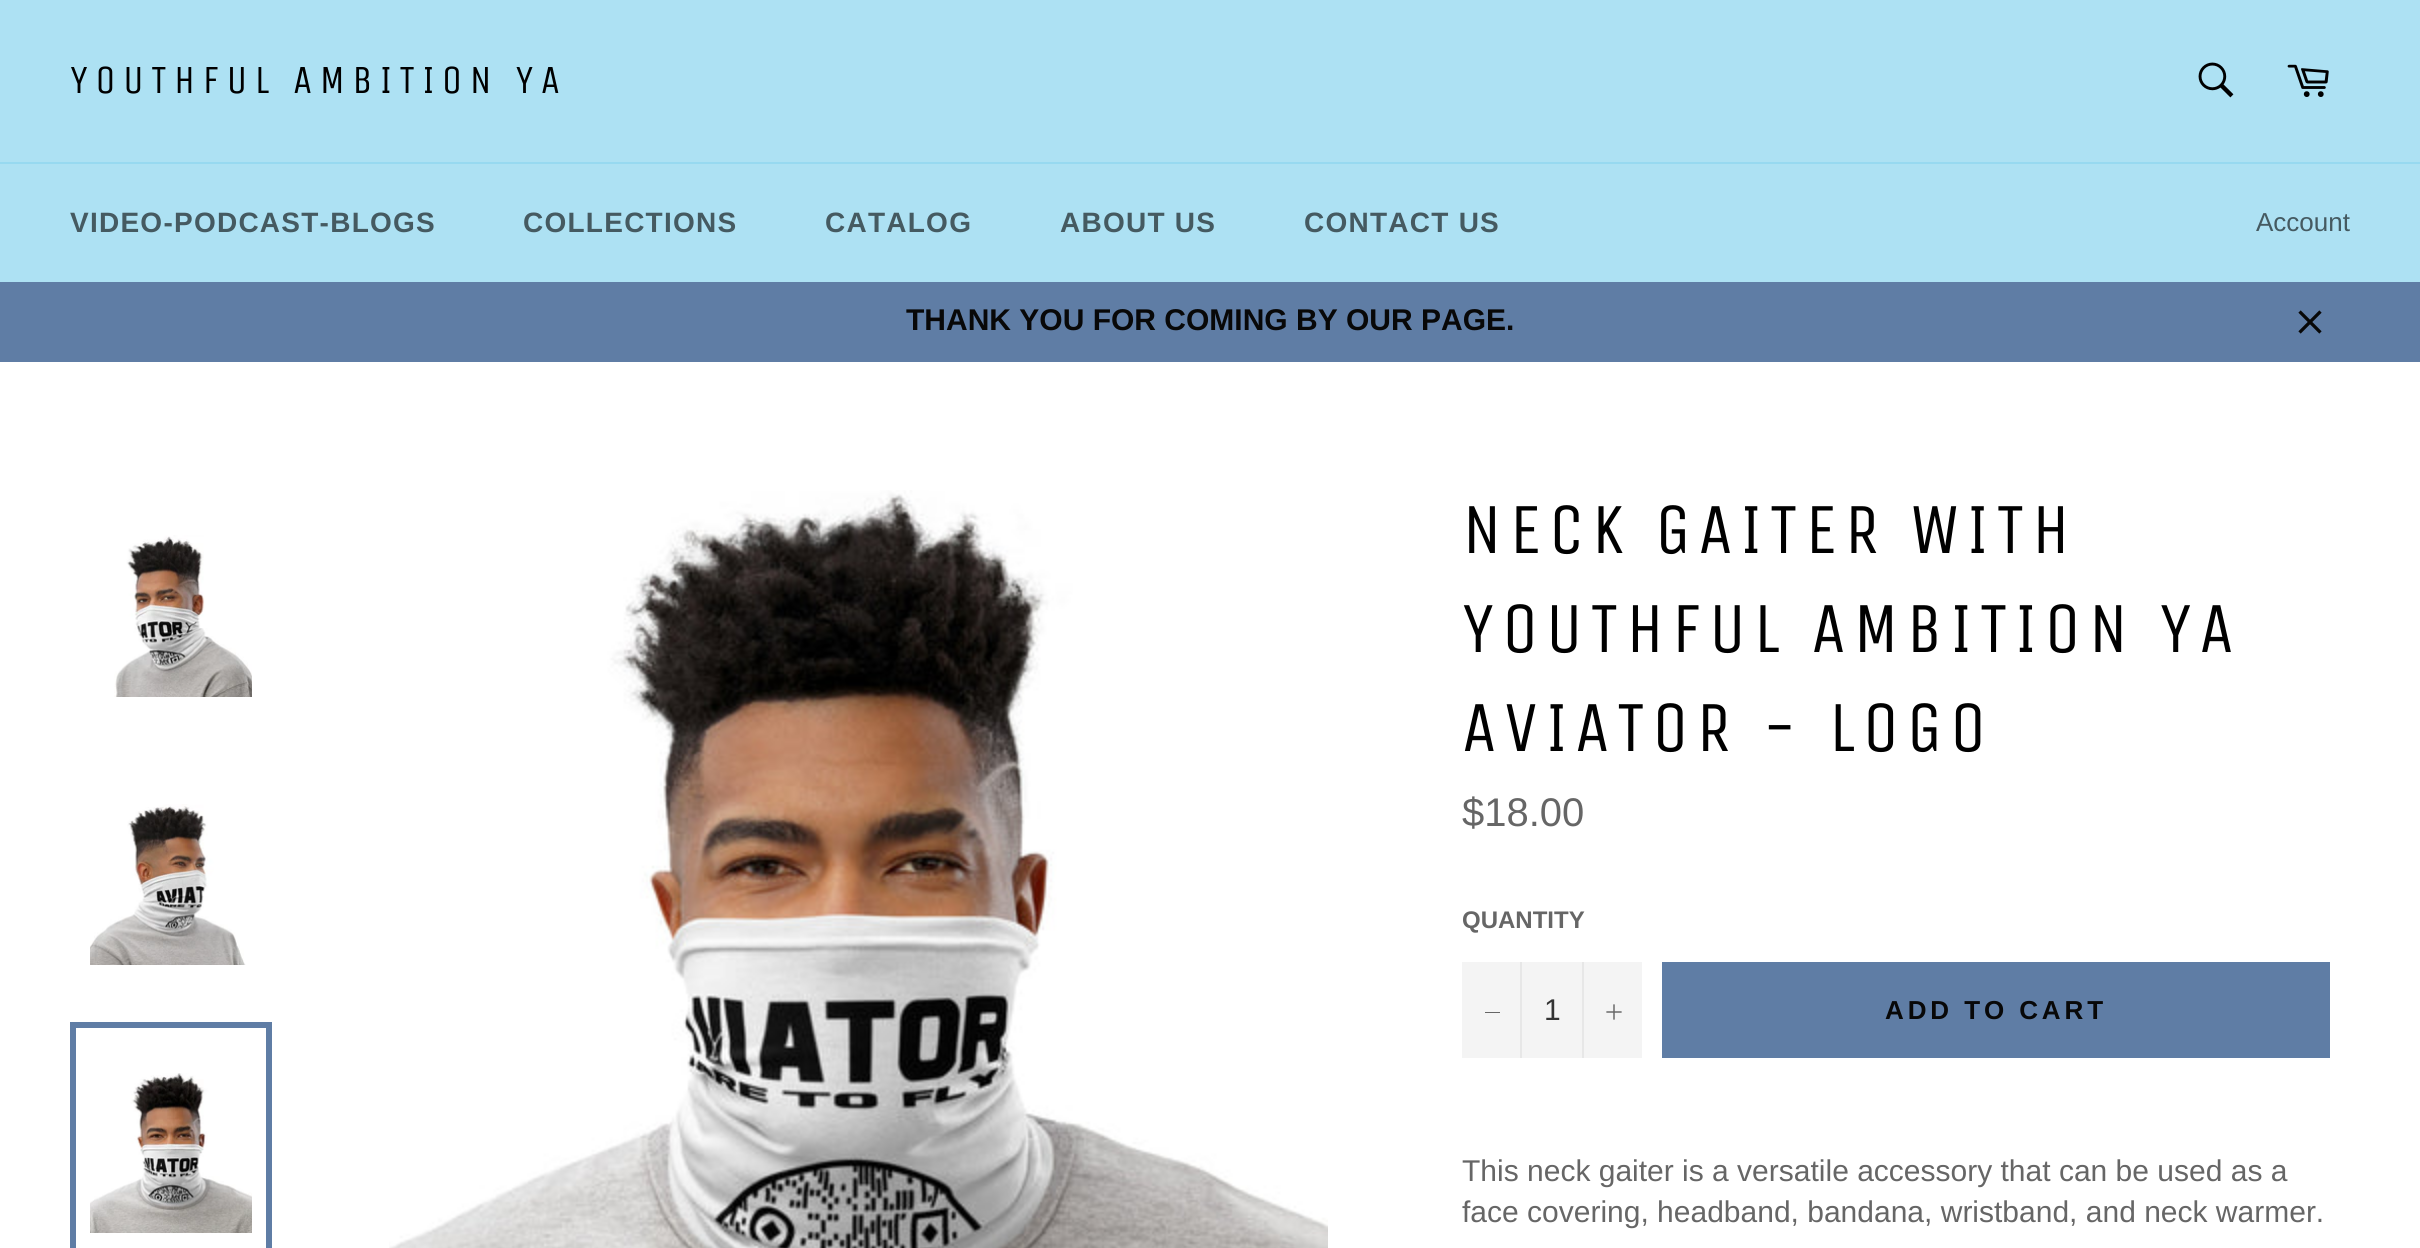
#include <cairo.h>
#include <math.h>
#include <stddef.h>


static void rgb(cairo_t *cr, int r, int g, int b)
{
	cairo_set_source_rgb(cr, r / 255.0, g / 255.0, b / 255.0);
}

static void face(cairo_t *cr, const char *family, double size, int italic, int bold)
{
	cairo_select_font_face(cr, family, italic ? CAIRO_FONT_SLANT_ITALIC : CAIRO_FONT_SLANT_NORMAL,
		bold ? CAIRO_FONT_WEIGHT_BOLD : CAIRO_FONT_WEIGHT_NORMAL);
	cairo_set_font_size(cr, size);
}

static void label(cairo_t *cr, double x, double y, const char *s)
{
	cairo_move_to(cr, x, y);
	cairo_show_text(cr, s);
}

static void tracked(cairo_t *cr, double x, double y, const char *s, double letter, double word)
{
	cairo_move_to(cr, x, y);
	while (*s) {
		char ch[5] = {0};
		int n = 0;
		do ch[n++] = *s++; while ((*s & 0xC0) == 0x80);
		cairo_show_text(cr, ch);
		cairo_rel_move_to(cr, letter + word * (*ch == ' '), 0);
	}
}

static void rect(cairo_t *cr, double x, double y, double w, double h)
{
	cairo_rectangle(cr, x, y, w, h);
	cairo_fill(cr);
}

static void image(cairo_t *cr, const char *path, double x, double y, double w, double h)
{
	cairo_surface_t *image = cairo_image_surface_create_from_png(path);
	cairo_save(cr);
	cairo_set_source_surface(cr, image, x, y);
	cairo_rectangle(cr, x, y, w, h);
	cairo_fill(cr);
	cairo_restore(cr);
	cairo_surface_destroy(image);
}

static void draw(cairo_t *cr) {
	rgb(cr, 255, 255, 255);
	cairo_paint(cr);
	rgb(cr, 173, 225, 243);
	rect(cr, 0, 0, 2420, 162);
	face(cr, "Unica One", 40, 0, 0);
	rgb(cr, 0, 0, 0);
	tracked(cr, 70, 93, "YOUTHFUL AMBITION YA", 7.25, 0);
	image(cr, "image0.png", 2198, 62, 36, 36);
	image(cr, "image1.png", 2287, 64, 42, 33);
	rgb(cr, 173, 225, 243);
	rect(cr, 0, 164, 2420, 118);
	rgb(cr, 151, 217, 240);
	rect(cr, 0, 162, 2420, 2);
	face(cr, "Liberation Sans", 28, 0, 1);
	rgb(cr, 69, 90, 97);
	tracked(cr, 70, 232, "VIDEO-PODCAST-BLOGS", 1.25, 0);
	tracked(cr, 523, 232, "COLLECTIONS", 1.25, 0);
	tracked(cr, 825, 232, "CATALOG", 1.25, 0);
	tracked(cr, 1060, 232, "ABOUT US", 1.25, 0);
	tracked(cr, 1304, 232, "CONTACT US", 1.25, 0);
	face(cr, "Liberation Sans", 26, 0, 0);
	label(cr, 2256, 231, "Account");
	rgb(cr, 95, 125, 165);
	rect(cr, 0, 282, 2420, 80);
	face(cr, "Liberation Sans", 30, 0, 1);
	rgb(cr, 8, 8, 8);
	label(cr, 906, 330, "THANK YOU FOR COMING BY OUR PAGE.");
	image(cr, "image2.png", 2298, 310, 24, 24);
	image(cr, "image3.png", 114, 535, 138, 162);
	image(cr, "image4.png", 90, 804, 156, 161);
	image(cr, "image5.png", 90, 1073, 162, 160);
	cairo_rectangle(cr, 73, 1025, 196, 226);
	rgb(cr, 95, 125, 165);
	cairo_set_line_width(cr, 6);
	cairo_stroke(cr);
	image(cr, "image6.png", 389, 490, 939, 758);
	face(cr, "Unica One", 72, 0, 0);
	rgb(cr, 0, 0, 0);
	tracked(cr, 1462, 553, "NECK GAITER WITH", 7.25, 0);
	tracked(cr, 1462, 652, "YOUTHFUL AMBITION YA", 7.25, 0);
	tracked(cr, 1462, 751, "AVIATOR - LOGO", 7.25, 0);
	face(cr, "Liberation Sans", 40, 0, 0);
	rgb(cr, 102, 102, 102);
	label(cr, 1462, 826, "$18.00");
	face(cr, "Liberation Sans", 24, 0, 1);
	label(cr, 1462, 928, "QUANTITY");
	rgb(cr, 244, 244, 244);
	rect(cr, 1462, 962, 180, 96);
	rgb(cr, 231, 231, 231);
	rect(cr, 1520, 962, 2, 96);
	rgb(cr, 102, 102, 102);
	rect(cr, 1485, 1012, 15, 1);
	face(cr, "Liberation Sans", 30, 0, 0);
	rgb(cr, 51, 51, 51);
	label(cr, 1544, 1020, "1");
	rgb(cr, 231, 231, 231);
	rect(cr, 1582, 962, 2, 96);
	image(cr, "image7.png", 1606, 1004, 16, 16);
	rgb(cr, 95, 125, 165);
	rect(cr, 1662, 962, 668, 96);
	face(cr, "Liberation Sans", 26, 0, 1);
	rgb(cr, 8, 8, 8);
	tracked(cr, 1885, 1019, "ADD TO CART", 3.9, 0);
	face(cr, "Liberation Sans", 30, 0, 0);
	rgb(cr, 102, 102, 102);
	label(cr, 1462, 1181, "This neck gaiter is a versatile accessory that can be used as a");
	label(cr, 1462, 1222, "face covering, headband, bandana, wristband, and neck warmer.");
}

int main(void) {
	cairo_surface_t *surface = cairo_image_surface_create(CAIRO_FORMAT_RGB24, 2420, 1248);
	cairo_t *cr = cairo_create(surface);
	cairo_font_options_t *options = cairo_font_options_create();
	cairo_font_options_set_hint_metrics(options, CAIRO_HINT_METRICS_OFF);
	cairo_font_options_set_hint_style(options, CAIRO_HINT_STYLE_NONE);
	cairo_set_font_options(cr, options);
	cairo_set_miter_limit(cr, 4);
	draw(cr);
	cairo_surface_write_to_png(surface, "render.png");
	cairo_font_options_destroy(options);
	cairo_destroy(cr);
	cairo_surface_destroy(surface);
	return 0;
}
